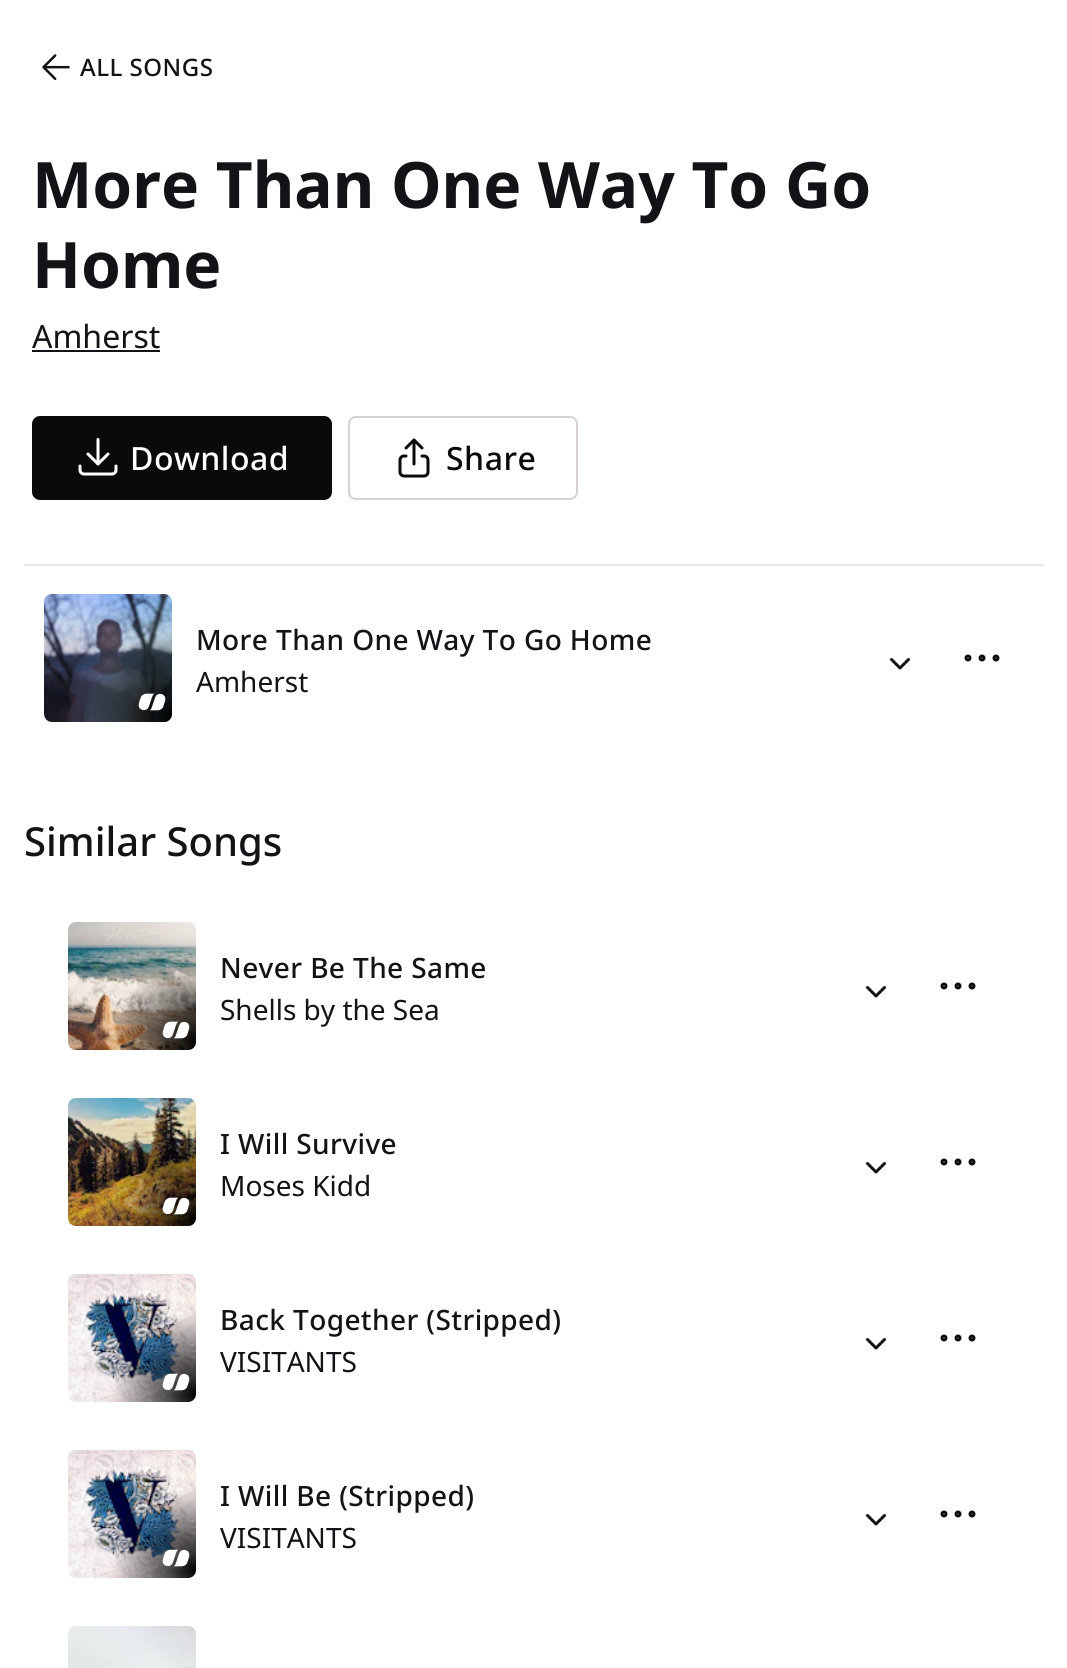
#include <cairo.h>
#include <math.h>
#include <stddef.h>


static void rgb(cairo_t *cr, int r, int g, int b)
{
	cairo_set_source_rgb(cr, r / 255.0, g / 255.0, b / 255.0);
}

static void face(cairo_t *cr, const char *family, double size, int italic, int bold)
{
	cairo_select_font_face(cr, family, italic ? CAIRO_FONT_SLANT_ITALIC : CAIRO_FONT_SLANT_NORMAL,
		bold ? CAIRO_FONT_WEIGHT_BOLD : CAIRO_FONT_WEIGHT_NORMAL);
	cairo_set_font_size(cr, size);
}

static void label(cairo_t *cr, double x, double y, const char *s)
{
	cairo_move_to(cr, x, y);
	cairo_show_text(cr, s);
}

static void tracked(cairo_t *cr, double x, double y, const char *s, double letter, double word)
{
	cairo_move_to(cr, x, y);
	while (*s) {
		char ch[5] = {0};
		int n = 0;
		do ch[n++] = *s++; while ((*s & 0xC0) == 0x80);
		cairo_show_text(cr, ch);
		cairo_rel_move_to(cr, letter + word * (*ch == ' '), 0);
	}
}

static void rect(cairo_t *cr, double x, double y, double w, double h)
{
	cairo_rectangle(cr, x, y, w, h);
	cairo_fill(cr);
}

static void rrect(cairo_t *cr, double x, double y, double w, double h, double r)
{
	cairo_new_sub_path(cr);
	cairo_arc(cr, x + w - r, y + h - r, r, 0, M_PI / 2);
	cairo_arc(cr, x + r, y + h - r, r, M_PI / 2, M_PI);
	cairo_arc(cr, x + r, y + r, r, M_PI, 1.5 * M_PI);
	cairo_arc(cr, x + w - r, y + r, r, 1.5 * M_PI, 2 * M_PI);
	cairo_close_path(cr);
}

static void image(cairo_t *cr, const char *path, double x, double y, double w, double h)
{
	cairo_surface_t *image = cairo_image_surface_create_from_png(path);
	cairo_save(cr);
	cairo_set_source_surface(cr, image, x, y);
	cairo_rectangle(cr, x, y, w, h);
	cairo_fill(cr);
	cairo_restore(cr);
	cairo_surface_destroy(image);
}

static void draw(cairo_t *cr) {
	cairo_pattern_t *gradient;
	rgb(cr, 255, 255, 255);
	cairo_paint(cr);
	rgb(cr, 227, 230, 237);
	rect(cr, 24, 564, 1020, 2);
	image(cr, "image0.png", 42, 54, 28, 27);
	face(cr, "Noto Sans Medium", 24, 0, 0);
	rgb(cr, 17, 19, 23);
	tracked(cr, 80, 76, "ALL SONGS", 0.5, 0);
	face(cr, "Noto Sans", 64, 0, 1);
	label(cr, 32, 208, "More Than One Way To Go");
	label(cr, 32, 288, "Home");
	face(cr, "Noto Sans", 32, 0, 0);
	label(cr, 32, 348, "Amherst");
	rect(cr, 32, 350, 128, 2);
	rgb(cr, 12, 10, 9);
	rrect(cr, 32, 416, 300, 84, 8);
	cairo_fill(cr);
	image(cr, "image1.png", 78, 438, 40, 38);
	face(cr, "Noto Sans Medium", 32, 0, 0);
	rgb(cr, 255, 255, 255);
	tracked(cr, 130, 470, "Download", 0.5, 0);
	rrect(cr, 349, 417, 228, 82, 7);
	rgb(cr, 214, 211, 209);
	cairo_stroke(cr);
	image(cr, "image2.png", 398, 438, 32, 40);
	rgb(cr, 12, 10, 9);
	tracked(cr, 446, 470, "Share", 0.5, 0);
	image(cr, "image3.png", 44, 594, 128, 128);
	gradient = cairo_pattern_create_radial(0, 0, 0, 0, 0, 1);
	cairo_pattern_set_matrix(gradient, &(cairo_matrix_t){1.0 / 139, 0, 0, 1.0 / 138, -1.0 * 172 / 139, -1.0 * 715 / 138});
	cairo_pattern_add_color_stop_rgba(gradient, 0, 0, 0, 0, 1);
	cairo_pattern_add_color_stop_rgba(gradient, 0.6, 0, 0, 0, 0);
	cairo_set_source(cr, gradient);
	cairo_pattern_destroy(gradient);
	cairo_new_path(cr);
	cairo_move_to(cr, 92, 594);
	cairo_line_to(cr, 172, 594);
	cairo_line_to(cr, 172, 714);
	cairo_curve_to(cr, 172, 718.5, 168.5, 722, 164, 722);
	cairo_line_to(cr, 44, 722);
	cairo_line_to(cr, 44, 642);
	cairo_curve_to(cr, 44, 615.5, 65.5, 594, 92, 594);
	cairo_close_path(cr);
	cairo_fill(cr);
	image(cr, "image4.png", 138, 693, 28, 18);
	face(cr, "Noto Sans Medium", 28, 0, 0);
	rgb(cr, 17, 19, 23);
	tracked(cr, 196, 650, "More Than One Way To Go Home", 0.4, 0);
	face(cr, "Noto Sans", 28, 0, 0);
	label(cr, 196, 692, "Amherst");
	image(cr, "image5.png", 890, 658, 20, 12);
	image(cr, "image6.png", 964, 654, 36, 8);
	face(cr, "Noto Sans Medium", 40, 0, 0);
	label(cr, 24, 856, "Similar Songs");
	image(cr, "image7.png", 68, 922, 128, 128);
	gradient = cairo_pattern_create_radial(0, 0, 0, 0, 0, 1);
	cairo_pattern_set_matrix(gradient, &(cairo_matrix_t){1.0 / 139, 0, 0, 1.0 / 138, -1.0 * 196 / 139, -1.0 * 1043 / 138});
	cairo_pattern_add_color_stop_rgba(gradient, 0, 0, 0, 0, 1);
	cairo_pattern_add_color_stop_rgba(gradient, 0.6, 0, 0, 0, 0);
	cairo_set_source(cr, gradient);
	cairo_pattern_destroy(gradient);
	cairo_new_path(cr);
	cairo_move_to(cr, 116, 922);
	cairo_line_to(cr, 196, 922);
	cairo_line_to(cr, 196, 1042);
	cairo_curve_to(cr, 196, 1046.5, 192.5, 1050, 188, 1050);
	cairo_line_to(cr, 68, 1050);
	cairo_line_to(cr, 68, 970);
	cairo_curve_to(cr, 68, 943.5, 89.5, 922, 116, 922);
	cairo_close_path(cr);
	cairo_fill(cr);
	image(cr, "image8.png", 162, 1021, 28, 18);
	face(cr, "Noto Sans Medium", 28, 0, 0);
	rgb(cr, 17, 19, 23);
	tracked(cr, 220, 978, "Never Be The Same", 0.4, 0);
	face(cr, "Noto Sans", 28, 0, 0);
	label(cr, 220, 1020, "Shells by the Sea");
	image(cr, "image5.png", 866, 986, 20, 12);
	image(cr, "image6.png", 940, 982, 36, 8);
	image(cr, "image9.png", 68, 1098, 128, 128);
	gradient = cairo_pattern_create_radial(0, 0, 0, 0, 0, 1);
	cairo_pattern_set_matrix(gradient, &(cairo_matrix_t){1.0 / 139, 0, 0, 1.0 / 138, -1.0 * 196 / 139, -1.0 * 1219 / 138});
	cairo_pattern_add_color_stop_rgba(gradient, 0, 0, 0, 0, 1);
	cairo_pattern_add_color_stop_rgba(gradient, 0.6, 0, 0, 0, 0);
	cairo_set_source(cr, gradient);
	cairo_pattern_destroy(gradient);
	cairo_new_path(cr);
	cairo_move_to(cr, 116, 1098);
	cairo_line_to(cr, 196, 1098);
	cairo_line_to(cr, 196, 1218);
	cairo_curve_to(cr, 196, 1222.5, 192.5, 1226, 188, 1226);
	cairo_line_to(cr, 68, 1226);
	cairo_line_to(cr, 68, 1146);
	cairo_curve_to(cr, 68, 1119.5, 89.5, 1098, 116, 1098);
	cairo_close_path(cr);
	cairo_fill(cr);
	image(cr, "image10.png", 162, 1197, 28, 18);
	face(cr, "Noto Sans Medium", 28, 0, 0);
	rgb(cr, 17, 19, 23);
	tracked(cr, 220, 1154, "I Will Survive", 0.4, 0);
	face(cr, "Noto Sans", 28, 0, 0);
	label(cr, 220, 1196, "Moses Kidd");
	image(cr, "image5.png", 866, 1162, 20, 12);
	image(cr, "image6.png", 940, 1158, 36, 8);
	image(cr, "image11.png", 68, 1274, 128, 128);
	gradient = cairo_pattern_create_radial(0, 0, 0, 0, 0, 1);
	cairo_pattern_set_matrix(gradient, &(cairo_matrix_t){1.0 / 139, 0, 0, 1.0 / 138, -1.0 * 196 / 139, -1.0 * 1395 / 138});
	cairo_pattern_add_color_stop_rgba(gradient, 0, 0, 0, 0, 1);
	cairo_pattern_add_color_stop_rgba(gradient, 0.6, 0, 0, 0, 0);
	cairo_set_source(cr, gradient);
	cairo_pattern_destroy(gradient);
	cairo_new_path(cr);
	cairo_move_to(cr, 116, 1274);
	cairo_line_to(cr, 196, 1274);
	cairo_line_to(cr, 196, 1394);
	cairo_curve_to(cr, 196, 1398.5, 192.5, 1402, 188, 1402);
	cairo_line_to(cr, 68, 1402);
	cairo_line_to(cr, 68, 1322);
	cairo_curve_to(cr, 68, 1295.5, 89.5, 1274, 116, 1274);
	cairo_close_path(cr);
	cairo_fill(cr);
	image(cr, "image12.png", 162, 1373, 28, 18);
	face(cr, "Noto Sans Medium", 28, 0, 0);
	rgb(cr, 17, 19, 23);
	tracked(cr, 220, 1330, "Back Together (Stripped)", 0.4, 0);
	face(cr, "Noto Sans", 28, 0, 0);
	label(cr, 220, 1372, "VISITANTS");
	image(cr, "image5.png", 866, 1338, 20, 12);
	image(cr, "image6.png", 940, 1334, 36, 8);
	image(cr, "image11.png", 68, 1450, 128, 128);
	gradient = cairo_pattern_create_radial(0, 0, 0, 0, 0, 1);
	cairo_pattern_set_matrix(gradient, &(cairo_matrix_t){1.0 / 139, 0, 0, 1.0 / 138, -1.0 * 196 / 139, -1.0 * 1571 / 138});
	cairo_pattern_add_color_stop_rgba(gradient, 0, 0, 0, 0, 1);
	cairo_pattern_add_color_stop_rgba(gradient, 0.6, 0, 0, 0, 0);
	cairo_set_source(cr, gradient);
	cairo_pattern_destroy(gradient);
	cairo_new_path(cr);
	cairo_move_to(cr, 116, 1450);
	cairo_line_to(cr, 196, 1450);
	cairo_line_to(cr, 196, 1570);
	cairo_curve_to(cr, 196, 1574.5, 192.5, 1578, 188, 1578);
	cairo_line_to(cr, 68, 1578);
	cairo_line_to(cr, 68, 1498);
	cairo_curve_to(cr, 68, 1471.5, 89.5, 1450, 116, 1450);
	cairo_close_path(cr);
	cairo_fill(cr);
	image(cr, "image12.png", 162, 1549, 28, 18);
	face(cr, "Noto Sans Medium", 28, 0, 0);
	rgb(cr, 17, 19, 23);
	tracked(cr, 220, 1506, "I Will Be (Stripped)", 0.4, 0);
	face(cr, "Noto Sans", 28, 0, 0);
	label(cr, 220, 1548, "VISITANTS");
	image(cr, "image5.png", 866, 1514, 20, 12);
	image(cr, "image6.png", 940, 1510, 36, 8);
	image(cr, "image13.png", 68, 1626, 128, 42);
	gradient = cairo_pattern_create_radial(0, 0, 0, 0, 0, 1);
	cairo_pattern_set_matrix(gradient, &(cairo_matrix_t){1.0 / 139, 0, 0, 1.0 / 138, -1.0 * 196 / 139, -1.0 * 1747 / 138});
	cairo_pattern_add_color_stop_rgba(gradient, 0, 0, 0, 0, 1);
	cairo_pattern_add_color_stop_rgba(gradient, 0.6, 0, 0, 0, 0);
	cairo_set_source(cr, gradient);
	cairo_pattern_destroy(gradient);
	rect(cr, 180, 1666, 16, 2);
}

int main(void) {
	cairo_surface_t *surface = cairo_image_surface_create(CAIRO_FORMAT_RGB24, 1067, 1668);
	cairo_t *cr = cairo_create(surface);
	cairo_font_options_t *options = cairo_font_options_create();
	cairo_font_options_set_hint_metrics(options, CAIRO_HINT_METRICS_OFF);
	cairo_font_options_set_hint_style(options, CAIRO_HINT_STYLE_NONE);
	cairo_set_font_options(cr, options);
	cairo_set_miter_limit(cr, 4);
	draw(cr);
	cairo_surface_write_to_png(surface, "render.png");
	cairo_font_options_destroy(options);
	cairo_destroy(cr);
	cairo_surface_destroy(surface);
	return 0;
}
